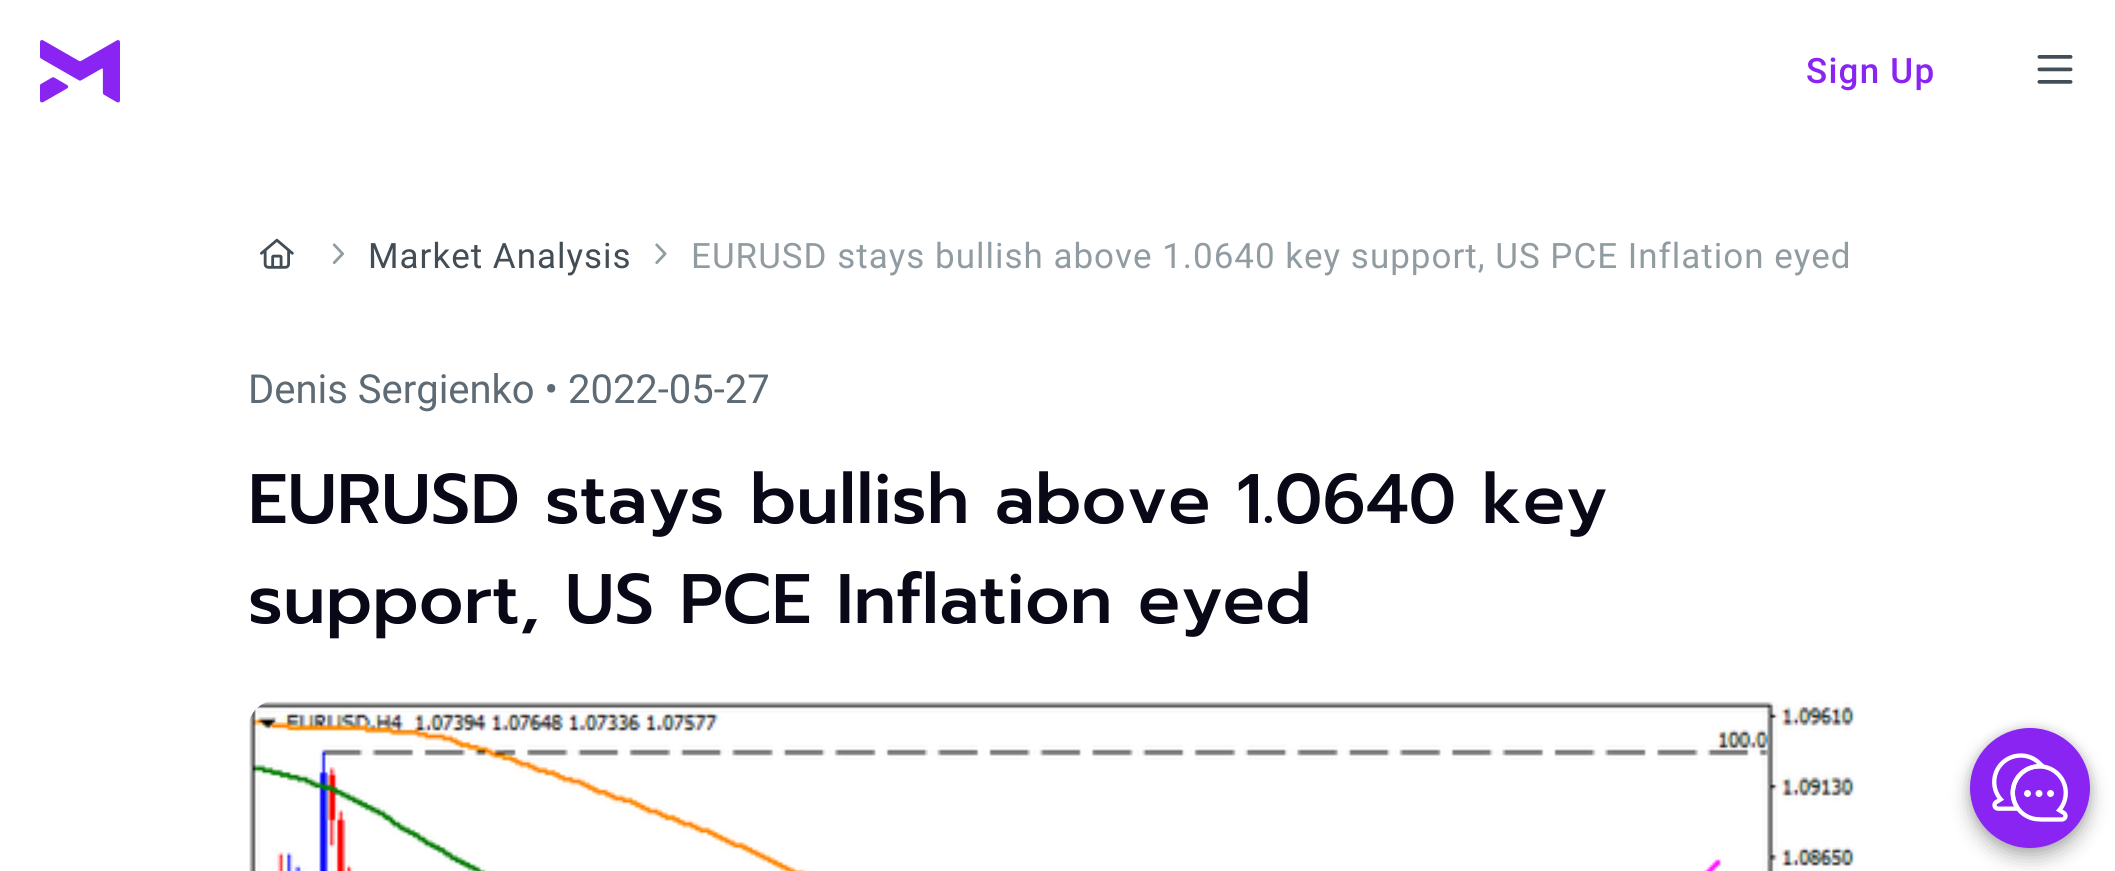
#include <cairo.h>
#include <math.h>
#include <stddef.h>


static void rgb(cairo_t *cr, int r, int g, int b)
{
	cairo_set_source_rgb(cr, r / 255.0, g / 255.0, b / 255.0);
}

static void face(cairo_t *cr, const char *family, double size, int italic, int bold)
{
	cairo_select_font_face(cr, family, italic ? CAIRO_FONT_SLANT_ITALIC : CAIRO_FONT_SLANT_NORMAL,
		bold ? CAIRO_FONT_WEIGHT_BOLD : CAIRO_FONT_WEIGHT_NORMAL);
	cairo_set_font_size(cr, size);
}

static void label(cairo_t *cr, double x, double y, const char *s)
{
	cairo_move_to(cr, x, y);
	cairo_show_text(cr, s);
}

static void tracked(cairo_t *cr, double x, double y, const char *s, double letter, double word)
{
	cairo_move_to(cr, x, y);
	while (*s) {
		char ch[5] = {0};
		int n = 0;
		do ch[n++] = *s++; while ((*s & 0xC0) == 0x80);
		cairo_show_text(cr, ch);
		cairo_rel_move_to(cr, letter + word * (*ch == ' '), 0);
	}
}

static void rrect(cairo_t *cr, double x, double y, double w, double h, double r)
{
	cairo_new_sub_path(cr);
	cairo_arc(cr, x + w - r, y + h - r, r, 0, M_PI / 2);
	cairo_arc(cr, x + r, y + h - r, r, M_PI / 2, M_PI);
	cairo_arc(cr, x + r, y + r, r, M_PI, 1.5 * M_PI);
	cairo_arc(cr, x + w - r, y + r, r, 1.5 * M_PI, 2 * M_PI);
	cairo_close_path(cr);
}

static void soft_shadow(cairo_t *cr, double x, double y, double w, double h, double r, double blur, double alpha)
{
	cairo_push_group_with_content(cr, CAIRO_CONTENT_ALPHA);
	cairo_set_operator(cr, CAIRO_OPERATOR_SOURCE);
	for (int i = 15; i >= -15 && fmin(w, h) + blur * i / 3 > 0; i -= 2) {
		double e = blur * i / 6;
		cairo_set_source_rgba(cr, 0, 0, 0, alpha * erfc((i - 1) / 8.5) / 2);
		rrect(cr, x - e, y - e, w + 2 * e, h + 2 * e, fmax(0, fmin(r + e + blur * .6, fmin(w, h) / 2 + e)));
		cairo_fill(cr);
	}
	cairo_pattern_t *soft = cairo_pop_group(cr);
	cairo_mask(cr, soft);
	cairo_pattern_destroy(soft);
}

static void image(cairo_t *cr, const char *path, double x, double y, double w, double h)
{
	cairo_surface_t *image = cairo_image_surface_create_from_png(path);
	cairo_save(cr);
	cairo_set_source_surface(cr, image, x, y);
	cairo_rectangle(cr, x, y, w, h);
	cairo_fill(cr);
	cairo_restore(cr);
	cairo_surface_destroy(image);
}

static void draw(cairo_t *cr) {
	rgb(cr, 255, 255, 255);
	cairo_paint(cr);
	image(cr, "image0.png", 40, 40, 80, 63);
	face(cr, "Roboto Medium", 35, 0, 0);
	rgb(cr, 138, 36, 243);
	tracked(cr, 1806, 83, "Sign Up", 1.25, 0);
	image(cr, "image1.png", 2037, 55, 36, 29);
	image(cr, "image2.png", 260, 238, 34, 31);
	image(cr, "image3.png", 332, 243, 12, 21);
	face(cr, "Roboto", 35, 0, 0);
	rgb(cr, 67, 77, 86);
	tracked(cr, 368, 268, "Market Analysis", 1, 0);
	image(cr, "image4.png", 655, 243, 12, 21);
	rgb(cr, 145, 156, 162);
	tracked(cr, 691, 268, "EURUSD stays bullish above 1.0640 key support, US PCE Inflation eyed", 1, 0);
	face(cr, "Roboto", 40, 0, 0);
	rgb(cr, 94, 107, 116);
	label(cr, 248, 403, "Denis Sergienko • 2022-05-27");
	face(cr, "Prompt Medium", 70, 0, 0);
	rgb(cr, 8, 8, 22);
	label(cr, 248, 523, "EURUSD stays bullish above 1.0640 key");
	label(cr, 248, 623, "support, US PCE Inflation eyed");
	image(cr, "image5.png", 249, 701, 1607, 170);
	rgb(cr, 0, 0, 0);
	soft_shadow(cr, 1970, 738, 120, 120, 60, 10, 0.28);
	soft_shadow(cr, 1970, 728, 120, 120, 60, 5, 0.14);
	rgb(cr, 138, 36, 242);
	cairo_arc(cr, 2030, 788, 60, 0, 2 * M_PI);
	cairo_fill(cr);
	image(cr, "image6.png", 1992, 753, 76, 69);
}

int main(void) {
	cairo_surface_t *surface = cairo_image_surface_create(CAIRO_FORMAT_RGB24, 2115, 871);
	cairo_t *cr = cairo_create(surface);
	cairo_font_options_t *options = cairo_font_options_create();
	cairo_font_options_set_hint_metrics(options, CAIRO_HINT_METRICS_OFF);
	cairo_font_options_set_hint_style(options, CAIRO_HINT_STYLE_NONE);
	cairo_set_font_options(cr, options);
	cairo_set_miter_limit(cr, 4);
	draw(cr);
	cairo_surface_write_to_png(surface, "render.png");
	cairo_font_options_destroy(options);
	cairo_destroy(cr);
	cairo_surface_destroy(surface);
	return 0;
}
